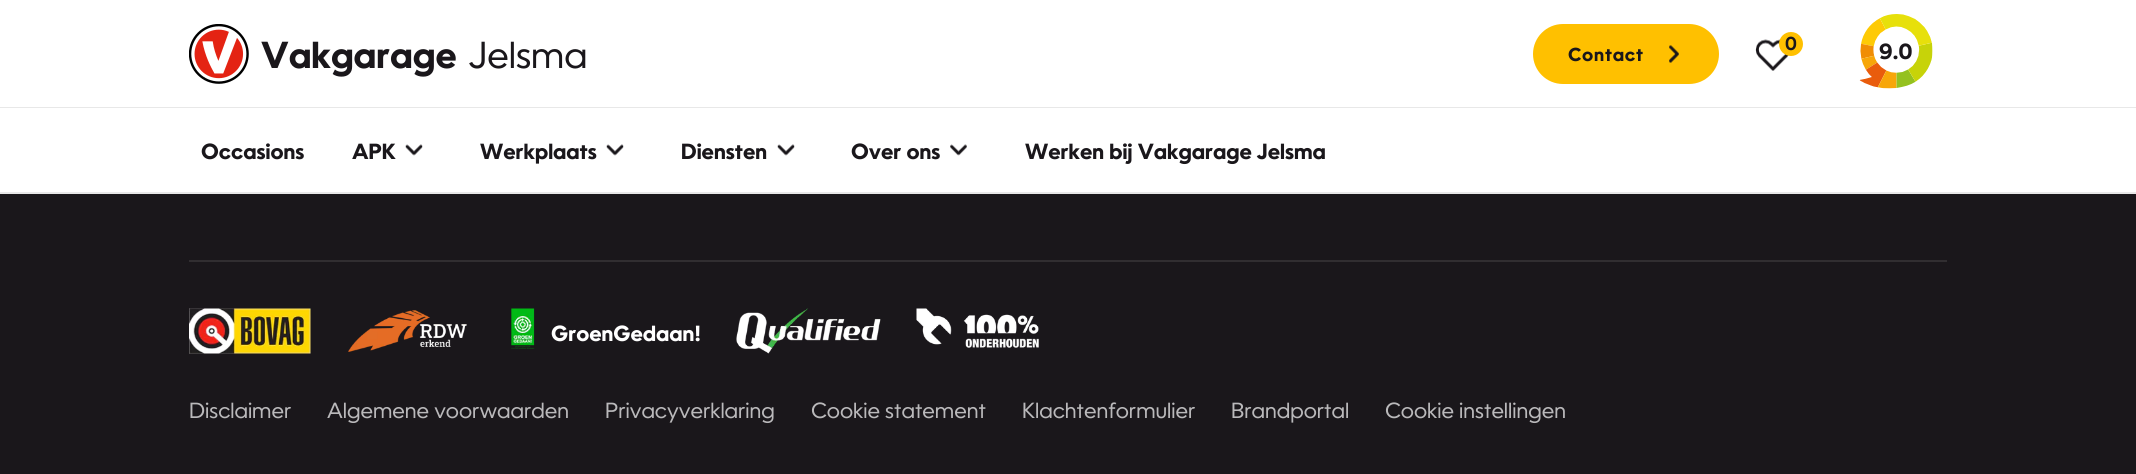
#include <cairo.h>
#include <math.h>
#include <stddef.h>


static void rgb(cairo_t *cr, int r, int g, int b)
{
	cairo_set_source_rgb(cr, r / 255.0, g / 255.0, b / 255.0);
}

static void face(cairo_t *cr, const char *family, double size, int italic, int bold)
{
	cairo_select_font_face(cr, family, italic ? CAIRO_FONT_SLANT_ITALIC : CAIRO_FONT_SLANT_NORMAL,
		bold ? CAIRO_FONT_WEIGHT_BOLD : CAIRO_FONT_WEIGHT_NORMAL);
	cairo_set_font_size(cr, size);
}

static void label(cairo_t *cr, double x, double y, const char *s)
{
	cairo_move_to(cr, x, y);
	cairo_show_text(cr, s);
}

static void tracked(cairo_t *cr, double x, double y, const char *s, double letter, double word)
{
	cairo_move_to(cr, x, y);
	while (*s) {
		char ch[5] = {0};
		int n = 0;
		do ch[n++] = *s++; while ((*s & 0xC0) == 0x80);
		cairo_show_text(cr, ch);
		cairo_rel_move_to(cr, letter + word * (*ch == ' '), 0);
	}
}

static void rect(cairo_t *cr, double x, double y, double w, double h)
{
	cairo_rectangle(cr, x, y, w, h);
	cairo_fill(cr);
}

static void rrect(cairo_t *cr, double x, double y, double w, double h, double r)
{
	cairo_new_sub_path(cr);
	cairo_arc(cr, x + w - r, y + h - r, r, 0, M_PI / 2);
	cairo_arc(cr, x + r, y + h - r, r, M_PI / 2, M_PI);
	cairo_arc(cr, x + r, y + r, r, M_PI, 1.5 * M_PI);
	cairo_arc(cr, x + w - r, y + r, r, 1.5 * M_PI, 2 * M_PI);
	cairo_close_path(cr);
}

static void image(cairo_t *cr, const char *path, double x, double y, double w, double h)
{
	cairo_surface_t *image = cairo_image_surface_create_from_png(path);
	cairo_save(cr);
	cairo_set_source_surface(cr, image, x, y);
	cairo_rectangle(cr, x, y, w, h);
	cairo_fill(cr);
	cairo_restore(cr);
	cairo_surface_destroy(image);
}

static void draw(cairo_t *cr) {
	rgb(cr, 26, 23, 27);
	cairo_paint(cr);
	rgb(cr, 255, 255, 255);
	rect(cr, 0, 0, 2136, 192);
	cairo_set_source_rgba(cr, 0.102, 0.09, 0.106, 0.1);
	rect(cr, 0, 107, 2136, 1);
	image(cr, "image0.png", 189, 24, 60, 60);
	face(cr, "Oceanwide", 36, 0, 1);
	rgb(cr, 26, 23, 27);
	label(cr, 261, 68, "Vakgarage");
	face(cr, "Oceanwide", 36, 0, 0);
	label(cr, 469, 68, "Jelsma");
	image(cr, "image1.png", 1755, 39, 34, 32);
	rgb(cr, 255, 192, 0);
	cairo_arc(cr, 1791, 44, 12, 0, 2 * M_PI);
	cairo_fill(cr);
	face(cr, "Oceanwide SemiBold", 18, 0, 0);
	rgb(cr, 26, 23, 27);
	label(cr, 1785, 50, "0");
	rgb(cr, 255, 192, 0);
	rrect(cr, 1533, 24, 186, 60, 30);
	cairo_fill(cr);
	face(cr, "Oceanwide", 18, 0, 1);
	rgb(cr, 26, 23, 27);
	tracked(cr, 1568, 61, "Contact", 0.75, 0);
	image(cr, "image2.png", 1669, 45, 10, 18);
	image(cr, "image3.png", 1859, 14, 74, 75);
	face(cr, "Oceanwide", 21, 0, 1);
	label(cr, 1879, 59, "9.0");
	rgb(cr, 232, 232, 232);
	rect(cr, 0, 192, 2136, 2);
	rgb(cr, 26, 23, 27);
	label(cr, 201, 159, "Occasions");
	label(cr, 352, 159, "APK");
	image(cr, "image4.png", 405, 144, 18, 12);
	label(cr, 480, 159, "Werkplaats");
	image(cr, "image4.png", 606, 144, 18, 12);
	label(cr, 681, 159, "Diensten");
	image(cr, "image4.png", 777, 144, 18, 12);
	label(cr, 851, 159, "Over ons");
	image(cr, "image5.png", 950, 144, 17, 12);
	label(cr, 1025, 159, "Werken bij Vakgarage Jelsma");
	rgb(cr, 49, 46, 49);
	rect(cr, 189, 260, 1758, 2);
	image(cr, "image6.png", 189, 308, 122, 46);
	image(cr, "image7.png", 348, 310, 119, 42);
	image(cr, "image8.png", 511, 308, 24, 41);
	rgb(cr, 255, 255, 255);
	label(cr, 551, 341, "GroenGedaan!");
	image(cr, "image9.png", 736, 308, 145, 46);
	image(cr, "image10.png", 916, 308, 123, 40);
	face(cr, "Oceanwide", 21, 0, 0);
	rgb(cr, 186, 185, 187);
	label(cr, 189, 418, "Disclaimer");
	label(cr, 327, 418, "Algemene voorwaarden");
	label(cr, 605, 418, "Privacyverklaring");
	label(cr, 811, 418, "Cookie statement");
	label(cr, 1022, 418, "Klachtenformulier");
	label(cr, 1231, 418, "Brandportal");
	label(cr, 1385, 418, "Cookie instellingen");
}

int main(void) {
	cairo_surface_t *surface = cairo_image_surface_create(CAIRO_FORMAT_RGB24, 2136, 474);
	cairo_t *cr = cairo_create(surface);
	cairo_font_options_t *options = cairo_font_options_create();
	cairo_font_options_set_hint_metrics(options, CAIRO_HINT_METRICS_OFF);
	cairo_font_options_set_hint_style(options, CAIRO_HINT_STYLE_NONE);
	cairo_set_font_options(cr, options);
	cairo_set_miter_limit(cr, 4);
	draw(cr);
	cairo_surface_write_to_png(surface, "render.png");
	cairo_font_options_destroy(options);
	cairo_destroy(cr);
	cairo_surface_destroy(surface);
	return 0;
}
